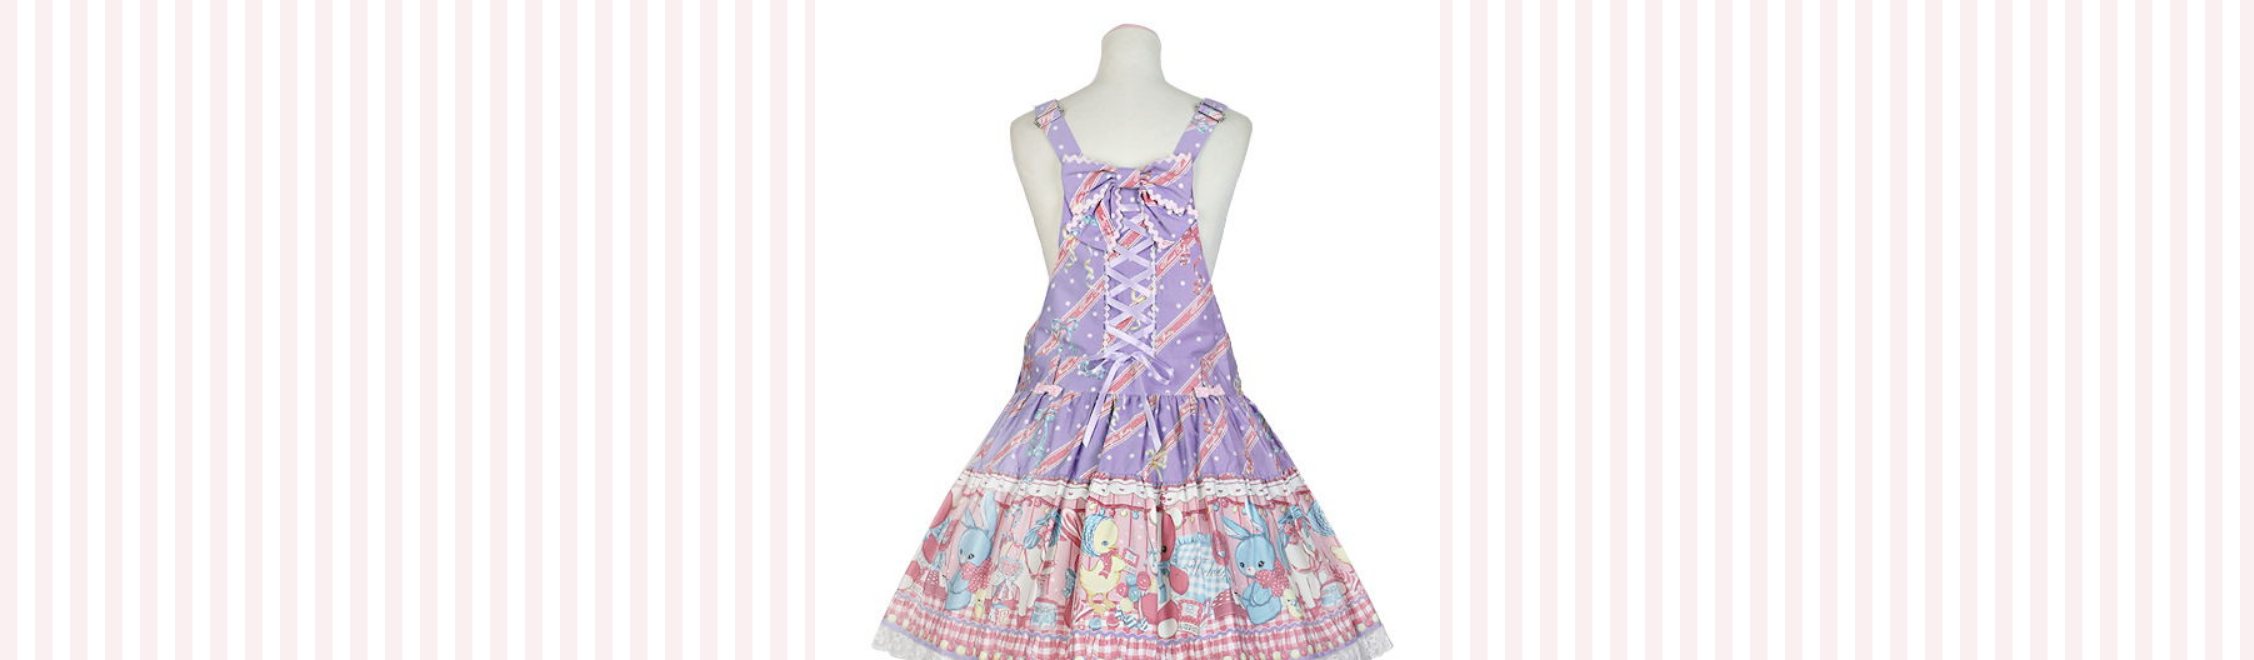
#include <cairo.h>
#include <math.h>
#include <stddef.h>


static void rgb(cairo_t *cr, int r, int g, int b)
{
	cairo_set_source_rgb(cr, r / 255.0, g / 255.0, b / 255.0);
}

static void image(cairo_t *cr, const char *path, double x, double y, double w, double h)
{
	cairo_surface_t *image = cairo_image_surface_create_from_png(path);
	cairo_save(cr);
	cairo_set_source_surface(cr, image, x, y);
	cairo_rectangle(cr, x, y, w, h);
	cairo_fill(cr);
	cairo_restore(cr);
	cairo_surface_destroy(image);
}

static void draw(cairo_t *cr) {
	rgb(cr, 255, 255, 255);
	cairo_paint(cr);
	image(cr, "image0.png", 0, 0, 2254, 660);
	image(cr, "image1.png", 815, 0, 625, 660);
}

int main(void) {
	cairo_surface_t *surface = cairo_image_surface_create(CAIRO_FORMAT_RGB24, 2254, 660);
	cairo_t *cr = cairo_create(surface);
	cairo_font_options_t *options = cairo_font_options_create();
	cairo_font_options_set_hint_metrics(options, CAIRO_HINT_METRICS_OFF);
	cairo_font_options_set_hint_style(options, CAIRO_HINT_STYLE_NONE);
	cairo_set_font_options(cr, options);
	cairo_set_miter_limit(cr, 4);
	draw(cr);
	cairo_surface_write_to_png(surface, "render.png");
	cairo_font_options_destroy(options);
	cairo_destroy(cr);
	cairo_surface_destroy(surface);
	return 0;
}
